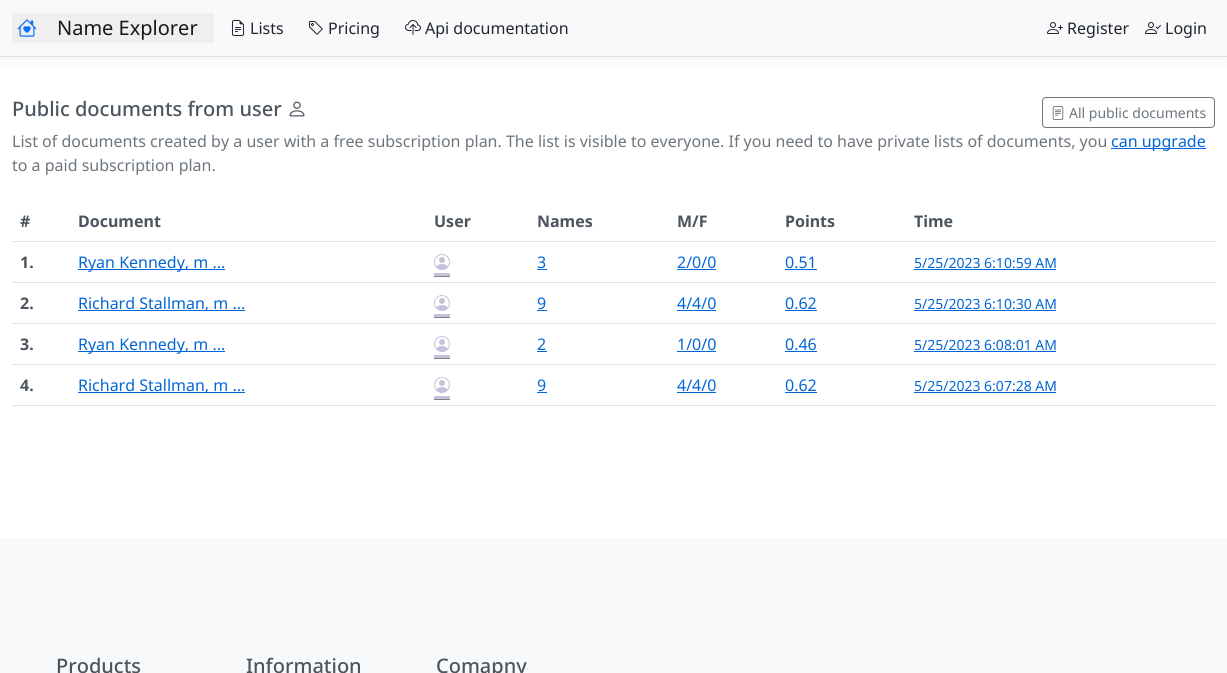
#include <cairo.h>
#include <math.h>
#include <stddef.h>


static void rgb(cairo_t *cr, int r, int g, int b)
{
	cairo_set_source_rgb(cr, r / 255.0, g / 255.0, b / 255.0);
}

static void face(cairo_t *cr, const char *family, double size, int italic, int bold)
{
	cairo_select_font_face(cr, family, italic ? CAIRO_FONT_SLANT_ITALIC : CAIRO_FONT_SLANT_NORMAL,
		bold ? CAIRO_FONT_WEIGHT_BOLD : CAIRO_FONT_WEIGHT_NORMAL);
	cairo_set_font_size(cr, size);
}

static void label(cairo_t *cr, double x, double y, const char *s)
{
	cairo_move_to(cr, x, y);
	cairo_show_text(cr, s);
}

static void rect(cairo_t *cr, double x, double y, double w, double h)
{
	cairo_rectangle(cr, x, y, w, h);
	cairo_fill(cr);
}

static void rrect(cairo_t *cr, double x, double y, double w, double h, double r)
{
	cairo_new_sub_path(cr);
	cairo_arc(cr, x + w - r, y + h - r, r, 0, M_PI / 2);
	cairo_arc(cr, x + r, y + h - r, r, M_PI / 2, M_PI);
	cairo_arc(cr, x + r, y + r, r, M_PI, 1.5 * M_PI);
	cairo_arc(cr, x + w - r, y + r, r, 1.5 * M_PI, 2 * M_PI);
	cairo_close_path(cr);
}

static void soft_shadow(cairo_t *cr, double x, double y, double w, double h, double r, double blur, double alpha)
{
	cairo_push_group_with_content(cr, CAIRO_CONTENT_ALPHA);
	cairo_set_operator(cr, CAIRO_OPERATOR_SOURCE);
	for (int i = 15; i >= -15 && fmin(w, h) + blur * i / 3 > 0; i -= 2) {
		double e = blur * i / 6;
		cairo_set_source_rgba(cr, 0, 0, 0, alpha * erfc((i - 1) / 8.5) / 2);
		rrect(cr, x - e, y - e, w + 2 * e, h + 2 * e, fmax(0, fmin(r + e + blur * .6, fmin(w, h) / 2 + e)));
		cairo_fill(cr);
	}
	cairo_pattern_t *soft = cairo_pop_group(cr);
	cairo_mask(cr, soft);
	cairo_pattern_destroy(soft);
}

static void image(cairo_t *cr, const char *path, double x, double y, double w, double h)
{
	cairo_surface_t *image = cairo_image_surface_create_from_png(path);
	cairo_save(cr);
	cairo_set_source_surface(cr, image, x, y);
	cairo_rectangle(cr, x, y, w, h);
	cairo_fill(cr);
	cairo_restore(cr);
	cairo_surface_destroy(image);
}

static void draw(cairo_t *cr) {
	rgb(cr, 255, 255, 255);
	cairo_paint(cr);
	rgb(cr, 0, 0, 0);
	soft_shadow(cr, 0, 4, 1227, 57, 0, 6, 0.05);
	rgb(cr, 248, 249, 250);
	rect(cr, 0, 0, 1227, 56);
	rgb(cr, 222, 226, 230);
	rect(cr, 0, 56, 1227, 1);
	rgb(cr, 239, 239, 239);
	rect(cr, 12, 13, 202, 30);
	image(cr, "image0.png", 17, 19, 20, 18);
	face(cr, "Noto Sans", 20, 0, 0);
	rgb(cr, 24, 24, 24);
	label(cr, 57, 35, "Name Explorer");
	image(cr, "image1.png", 231, 20, 14, 16);
	face(cr, "Noto Sans", 16, 0, 0);
	rgb(cr, 33, 37, 41);
	label(cr, 250, 34, "Lists");
	image(cr, "image2.png", 309, 21, 14, 14);
	label(cr, 328, 34, "Pricing");
	image(cr, "image3.png", 405, 20, 16, 15);
	label(cr, 425, 34, "Api documentation");
	image(cr, "image4.png", 1047, 22, 16, 12);
	label(cr, 1067, 34, "Register");
	image(cr, "image5.png", 1145, 22, 16, 12);
	label(cr, 1165, 34, "Login");
	face(cr, "Noto Sans Medium", 20, 0, 0);
	rgb(cr, 76, 85, 94);
	label(cr, 12, 116, "Public documents from user");
	image(cr, "image6.png", 289, 101, 16, 16);
	rrect(cr, 1042.5, 97.5, 172, 30, 3.5);
	rgb(cr, 108, 117, 125);
	cairo_set_line_width(cr, 1);
	cairo_stroke(cr);
	image(cr, "image7.png", 1052, 106, 12, 14);
	face(cr, "Noto Sans", 14, 0, 0);
	label(cr, 1069, 118, "All public documents");
	face(cr, "Noto Sans", 16, 0, 0);
	label(cr, 12, 147, "List of documents created by a user with a free subscription plan. The list is visible to everyone. If you need to have private lists of documents, you");
	rgb(cr, 3, 102, 214);
	rect(cr, 1111, 148, 95, 1);
	label(cr, 1111, 147, "can upgrade");
	rgb(cr, 108, 117, 125);
	label(cr, 12, 171, "to a paid subscription plan.");
	face(cr, "Noto Sans", 16, 0, 1);
	rgb(cr, 76, 85, 94);
	label(cr, 20, 227, "#");
	label(cr, 78, 227, "Document");
	label(cr, 434, 227, "User");
	label(cr, 537, 227, "Names");
	label(cr, 677, 227, "M/F");
	label(cr, 785, 227, "Points");
	rgb(cr, 222, 226, 230);
	rect(cr, 12, 241, 1204, 1);
	rgb(cr, 76, 85, 94);
	label(cr, 914, 227, "Time");
	label(cr, 20, 268, "1.");
	rgb(cr, 3, 102, 214);
	rect(cr, 78, 269, 147, 1);
	face(cr, "Noto Sans", 16, 0, 0);
	label(cr, 78, 268, "Ryan Kennedy, m ...");
	rgb(cr, 130, 130, 130);
	rect(cr, 434, 276, 16, 1);
	rgb(cr, 200, 193, 219);
	rect(cr, 434, 273, 16, 3);
	image(cr, "image8.png", 434, 254, 16, 16);
	rgb(cr, 3, 102, 214);
	label(cr, 537, 268, "3");
	rect(cr, 537, 269, 10, 1);
	label(cr, 677, 268, "2/0/0");
	rect(cr, 677, 269, 39, 1);
	label(cr, 785, 268, "0.51");
	rect(cr, 785, 269, 32, 1);
	rgb(cr, 222, 226, 230);
	rect(cr, 12, 282, 1204, 1);
	face(cr, "Noto Sans", 14, 0, 0);
	rgb(cr, 3, 102, 214);
	label(cr, 914, 268, "5/25/2023 6:10:59 AM");
	rect(cr, 914, 269, 142, 1);
	face(cr, "Noto Sans", 16, 0, 1);
	rgb(cr, 76, 85, 94);
	label(cr, 20, 309, "2.");
	rgb(cr, 3, 102, 214);
	rect(cr, 78, 310, 167, 1);
	face(cr, "Noto Sans", 16, 0, 0);
	label(cr, 78, 309, "Richard Stallman, m ...");
	rgb(cr, 130, 130, 130);
	rect(cr, 434, 317, 16, 1);
	rgb(cr, 200, 193, 219);
	rect(cr, 434, 314, 16, 3);
	image(cr, "image8.png", 434, 295, 16, 16);
	rgb(cr, 3, 102, 214);
	label(cr, 537, 309, "9");
	rect(cr, 537, 310, 10, 1);
	label(cr, 677, 309, "4/4/0");
	rect(cr, 677, 310, 39, 1);
	label(cr, 785, 309, "0.62");
	rect(cr, 785, 310, 32, 1);
	rgb(cr, 222, 226, 230);
	rect(cr, 12, 323, 1204, 1);
	face(cr, "Noto Sans", 14, 0, 0);
	rgb(cr, 3, 102, 214);
	label(cr, 914, 309, "5/25/2023 6:10:30 AM");
	rect(cr, 914, 310, 142, 1);
	face(cr, "Noto Sans", 16, 0, 1);
	rgb(cr, 76, 85, 94);
	label(cr, 20, 350, "3.");
	rgb(cr, 3, 102, 214);
	rect(cr, 78, 351, 147, 1);
	face(cr, "Noto Sans", 16, 0, 0);
	label(cr, 78, 350, "Ryan Kennedy, m ...");
	rgb(cr, 130, 130, 130);
	rect(cr, 434, 358, 16, 1);
	rgb(cr, 200, 193, 219);
	rect(cr, 434, 355, 16, 3);
	image(cr, "image8.png", 434, 336, 16, 16);
	rgb(cr, 3, 102, 214);
	label(cr, 537, 350, "2");
	rect(cr, 537, 351, 10, 1);
	label(cr, 677, 350, "1/0/0");
	rect(cr, 677, 351, 39, 1);
	label(cr, 785, 350, "0.46");
	rect(cr, 785, 351, 32, 1);
	rgb(cr, 222, 226, 230);
	rect(cr, 12, 364, 1204, 1);
	face(cr, "Noto Sans", 14, 0, 0);
	rgb(cr, 3, 102, 214);
	label(cr, 914, 350, "5/25/2023 6:08:01 AM");
	rect(cr, 914, 351, 142, 1);
	face(cr, "Noto Sans", 16, 0, 1);
	rgb(cr, 76, 85, 94);
	label(cr, 20, 391, "4.");
	rgb(cr, 3, 102, 214);
	rect(cr, 78, 392, 167, 1);
	face(cr, "Noto Sans", 16, 0, 0);
	label(cr, 78, 391, "Richard Stallman, m ...");
	rgb(cr, 130, 130, 130);
	rect(cr, 434, 399, 16, 1);
	rgb(cr, 200, 193, 219);
	rect(cr, 434, 396, 16, 3);
	image(cr, "image8.png", 434, 377, 16, 16);
	rgb(cr, 3, 102, 214);
	label(cr, 537, 391, "9");
	rect(cr, 537, 392, 10, 1);
	label(cr, 677, 391, "4/4/0");
	rect(cr, 677, 392, 39, 1);
	label(cr, 785, 391, "0.62");
	rect(cr, 785, 392, 32, 1);
	rgb(cr, 222, 226, 230);
	rect(cr, 12, 405, 1204, 1);
	face(cr, "Noto Sans", 14, 0, 0);
	rgb(cr, 3, 102, 214);
	label(cr, 914, 391, "5/25/2023 6:07:28 AM");
	rect(cr, 914, 392, 142, 1);
	rgb(cr, 248, 249, 250);
	rect(cr, 0, 538, 1227, 135);
	face(cr, "Noto Sans Medium", 20, 0, 0);
	rgb(cr, 76, 85, 94);
	label(cr, 56, 673, "Products");
	label(cr, 246, 673, "Information");
	label(cr, 436, 673, "Comapny");
}

int main(void) {
	cairo_surface_t *surface = cairo_image_surface_create(CAIRO_FORMAT_RGB24, 1227, 673);
	cairo_t *cr = cairo_create(surface);
	cairo_font_options_t *options = cairo_font_options_create();
	cairo_font_options_set_hint_metrics(options, CAIRO_HINT_METRICS_OFF);
	cairo_font_options_set_hint_style(options, CAIRO_HINT_STYLE_NONE);
	cairo_set_font_options(cr, options);
	cairo_set_miter_limit(cr, 4);
	draw(cr);
	cairo_surface_write_to_png(surface, "render.png");
	cairo_font_options_destroy(options);
	cairo_destroy(cr);
	cairo_surface_destroy(surface);
	return 0;
}
